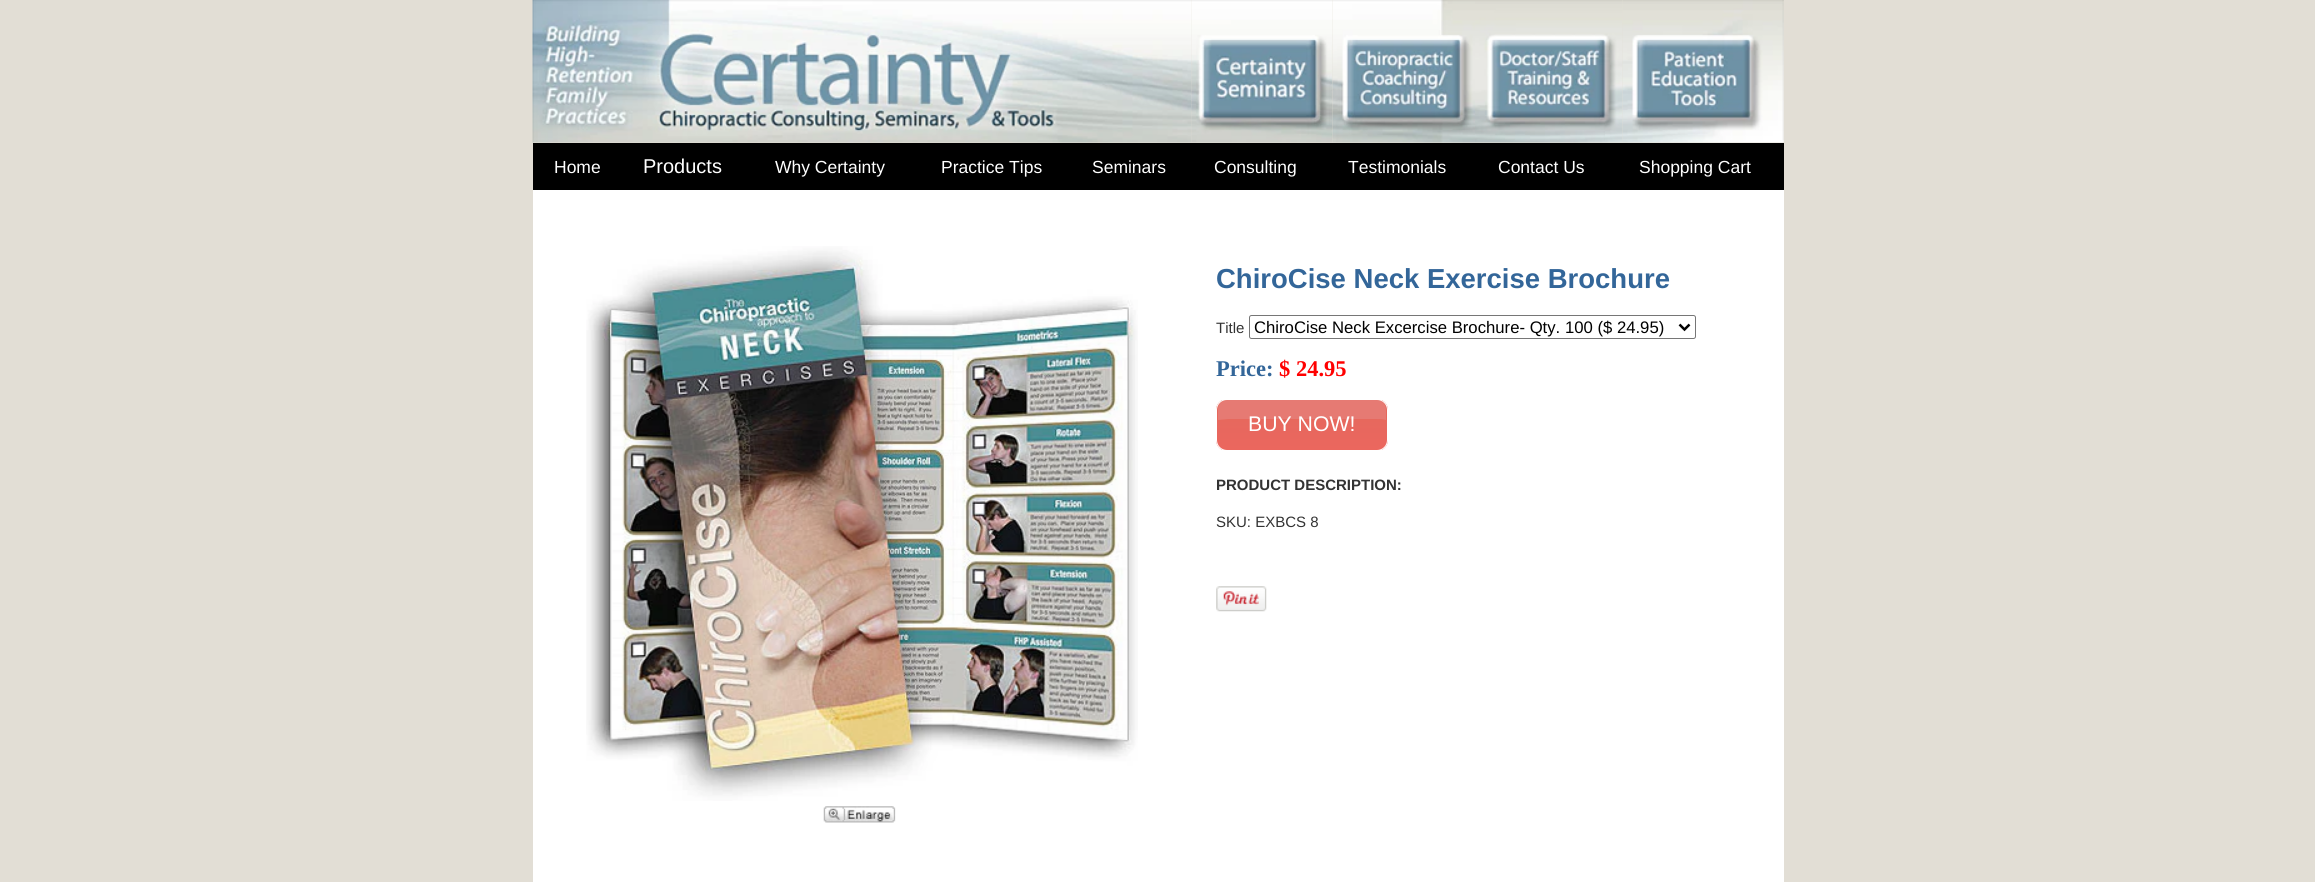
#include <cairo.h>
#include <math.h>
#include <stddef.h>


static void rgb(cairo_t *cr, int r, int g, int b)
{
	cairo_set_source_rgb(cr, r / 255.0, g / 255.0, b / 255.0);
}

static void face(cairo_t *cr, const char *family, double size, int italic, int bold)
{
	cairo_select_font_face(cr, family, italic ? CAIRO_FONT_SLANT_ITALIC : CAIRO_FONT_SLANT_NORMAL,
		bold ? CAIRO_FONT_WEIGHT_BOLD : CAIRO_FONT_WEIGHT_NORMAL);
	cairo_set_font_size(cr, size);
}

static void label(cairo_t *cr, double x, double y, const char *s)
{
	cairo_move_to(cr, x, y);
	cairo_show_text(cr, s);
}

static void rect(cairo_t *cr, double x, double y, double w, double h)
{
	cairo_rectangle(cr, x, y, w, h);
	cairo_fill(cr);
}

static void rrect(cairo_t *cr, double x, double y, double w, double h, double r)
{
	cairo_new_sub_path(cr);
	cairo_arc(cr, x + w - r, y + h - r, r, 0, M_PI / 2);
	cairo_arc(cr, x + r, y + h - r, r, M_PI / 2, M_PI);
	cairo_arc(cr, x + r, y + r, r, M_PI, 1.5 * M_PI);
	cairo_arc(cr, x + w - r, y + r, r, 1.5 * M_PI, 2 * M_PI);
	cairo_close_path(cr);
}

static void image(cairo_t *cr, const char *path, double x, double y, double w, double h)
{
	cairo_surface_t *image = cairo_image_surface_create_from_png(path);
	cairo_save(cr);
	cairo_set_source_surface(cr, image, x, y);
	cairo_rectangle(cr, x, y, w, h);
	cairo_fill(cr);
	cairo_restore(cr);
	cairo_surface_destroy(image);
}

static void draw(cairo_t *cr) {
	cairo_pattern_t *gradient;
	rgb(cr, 226, 222, 213);
	cairo_paint(cr);
	image(cr, "image0.png", 532, 0, 660, 143);
	image(cr, "image1.png", 1191, 0, 142, 143);
	image(cr, "image2.png", 1332, 0, 143, 143);
	image(cr, "image3.png", 1475, 0, 148, 143);
	image(cr, "image4.png", 1622, 0, 162, 143);
	rgb(cr, 0, 0, 0);
	rect(cr, 533, 143, 1251, 47);
	face(cr, "Liberation Sans", 17.5, 0, 0);
	rgb(cr, 255, 255, 255);
	label(cr, 554, 173, "Home");
	face(cr, "Liberation Sans", 20, 0, 0);
	label(cr, 643, 173, "Products");
	face(cr, "Liberation Sans", 17.5, 0, 0);
	label(cr, 775, 173, "Why Certainty");
	label(cr, 941, 173, "Practice Tips");
	label(cr, 1092, 173, "Seminars");
	label(cr, 1214, 173, "Consulting");
	label(cr, 1348, 173, "Testimonials");
	label(cr, 1498, 173, "Contact Us");
	label(cr, 1639, 173, "Shopping Cart");
	rect(cr, 533, 190, 1251, 692);
	image(cr, "image5.png", 586, 246, 552, 555);
	image(cr, "image6.png", 823, 806, 73, 17);
	face(cr, "Liberation Sans", 27.5, 0, 1);
	rgb(cr, 51, 102, 153);
	label(cr, 1216, 288, "ChiroCise Neck Exercise Brochure");
	face(cr, "Liberation Sans", 15, 0, 0);
	rgb(cr, 51, 51, 51);
	label(cr, 1216, 333, "Title");
	rrect(cr, 1249.5, 315.5, 446, 23, 2);
	rgb(cr, 118, 118, 118);
	cairo_set_line_width(cr, 1);
	cairo_stroke(cr);
	cairo_new_path(cr);
	cairo_move_to(cr, 1679.5, 324.5);
	cairo_line_to(cr, 1684.5, 329.5);
	cairo_line_to(cr, 1689.5, 324.5);
	rgb(cr, 0, 0, 0);
	cairo_set_line_width(cr, 2.5);
	cairo_stroke(cr);
	face(cr, "Liberation Sans", 16.7, 0, 0);
	label(cr, 1254, 333, "ChiroCise Neck Excercise Brochure- Qty. 100 ($ 24.95)");
	face(cr, "Liberation Serif", 22.5, 0, 1);
	rgb(cr, 51, 102, 153);
	label(cr, 1216, 376, "Price:");
	rgb(cr, 255, 0, 0);
	label(cr, 1279, 376, "$ 24.95");
	cairo_save(cr);
	rrect(cr, 1216, 399, 172, 52, 11);
	cairo_clip(cr);
	gradient = cairo_pattern_create_linear(1302, 400, 1302, 450);
	cairo_pattern_add_color_stop_rgba(gradient, 0.05, 0.894, 0.408, 0.365, 1);
	cairo_pattern_add_color_stop_rgba(gradient, 1, 0.922, 0.404, 0.369, 1);
	cairo_set_source(cr, gradient);
	cairo_pattern_destroy(gradient);
	rect(cr, 1216, 400, 172, 50);
	cairo_restore(cr);
	rgb(cr, 230, 122, 115);
	cairo_new_path(cr);
	cairo_move_to(cr, 1228, 419);
	cairo_line_to(cr, 1376, 419);
	cairo_curve_to(cr, 1379, 419, 1383, 419, 1386, 420);
	cairo_line_to(cr, 1386, 410);
	cairo_curve_to(cr, 1386, 404, 1382, 400, 1376, 400);
	cairo_line_to(cr, 1228, 400);
	cairo_curve_to(cr, 1222, 400, 1218, 404, 1218, 410);
	cairo_line_to(cr, 1218, 420);
	cairo_close_path(cr);
	cairo_fill(cr);
	rrect(cr, 1216.5, 399.5, 171, 51, 10.5);
	rgb(cr, 255, 255, 255);
	cairo_set_line_width(cr, 1);
	cairo_stroke(cr);
	face(cr, "Liberation Sans", 21.25, 0, 0);
	label(cr, 1248, 431, "BUY NOW!");
	face(cr, "Liberation Sans", 15, 0, 1);
	rgb(cr, 51, 51, 51);
	label(cr, 1216, 490, "PRODUCT DESCRIPTION:");
	face(cr, "Liberation Sans", 15, 0, 0);
	label(cr, 1216, 527, "SKU: EXBCS 8");
	image(cr, "image7.png", 1216, 586, 51, 26);
}

int main(void) {
	cairo_surface_t *surface = cairo_image_surface_create(CAIRO_FORMAT_RGB24, 2315, 882);
	cairo_t *cr = cairo_create(surface);
	cairo_font_options_t *options = cairo_font_options_create();
	cairo_font_options_set_hint_metrics(options, CAIRO_HINT_METRICS_OFF);
	cairo_font_options_set_hint_style(options, CAIRO_HINT_STYLE_NONE);
	cairo_set_font_options(cr, options);
	cairo_set_miter_limit(cr, 4);
	draw(cr);
	cairo_surface_write_to_png(surface, "render.png");
	cairo_font_options_destroy(options);
	cairo_destroy(cr);
	cairo_surface_destroy(surface);
	return 0;
}
